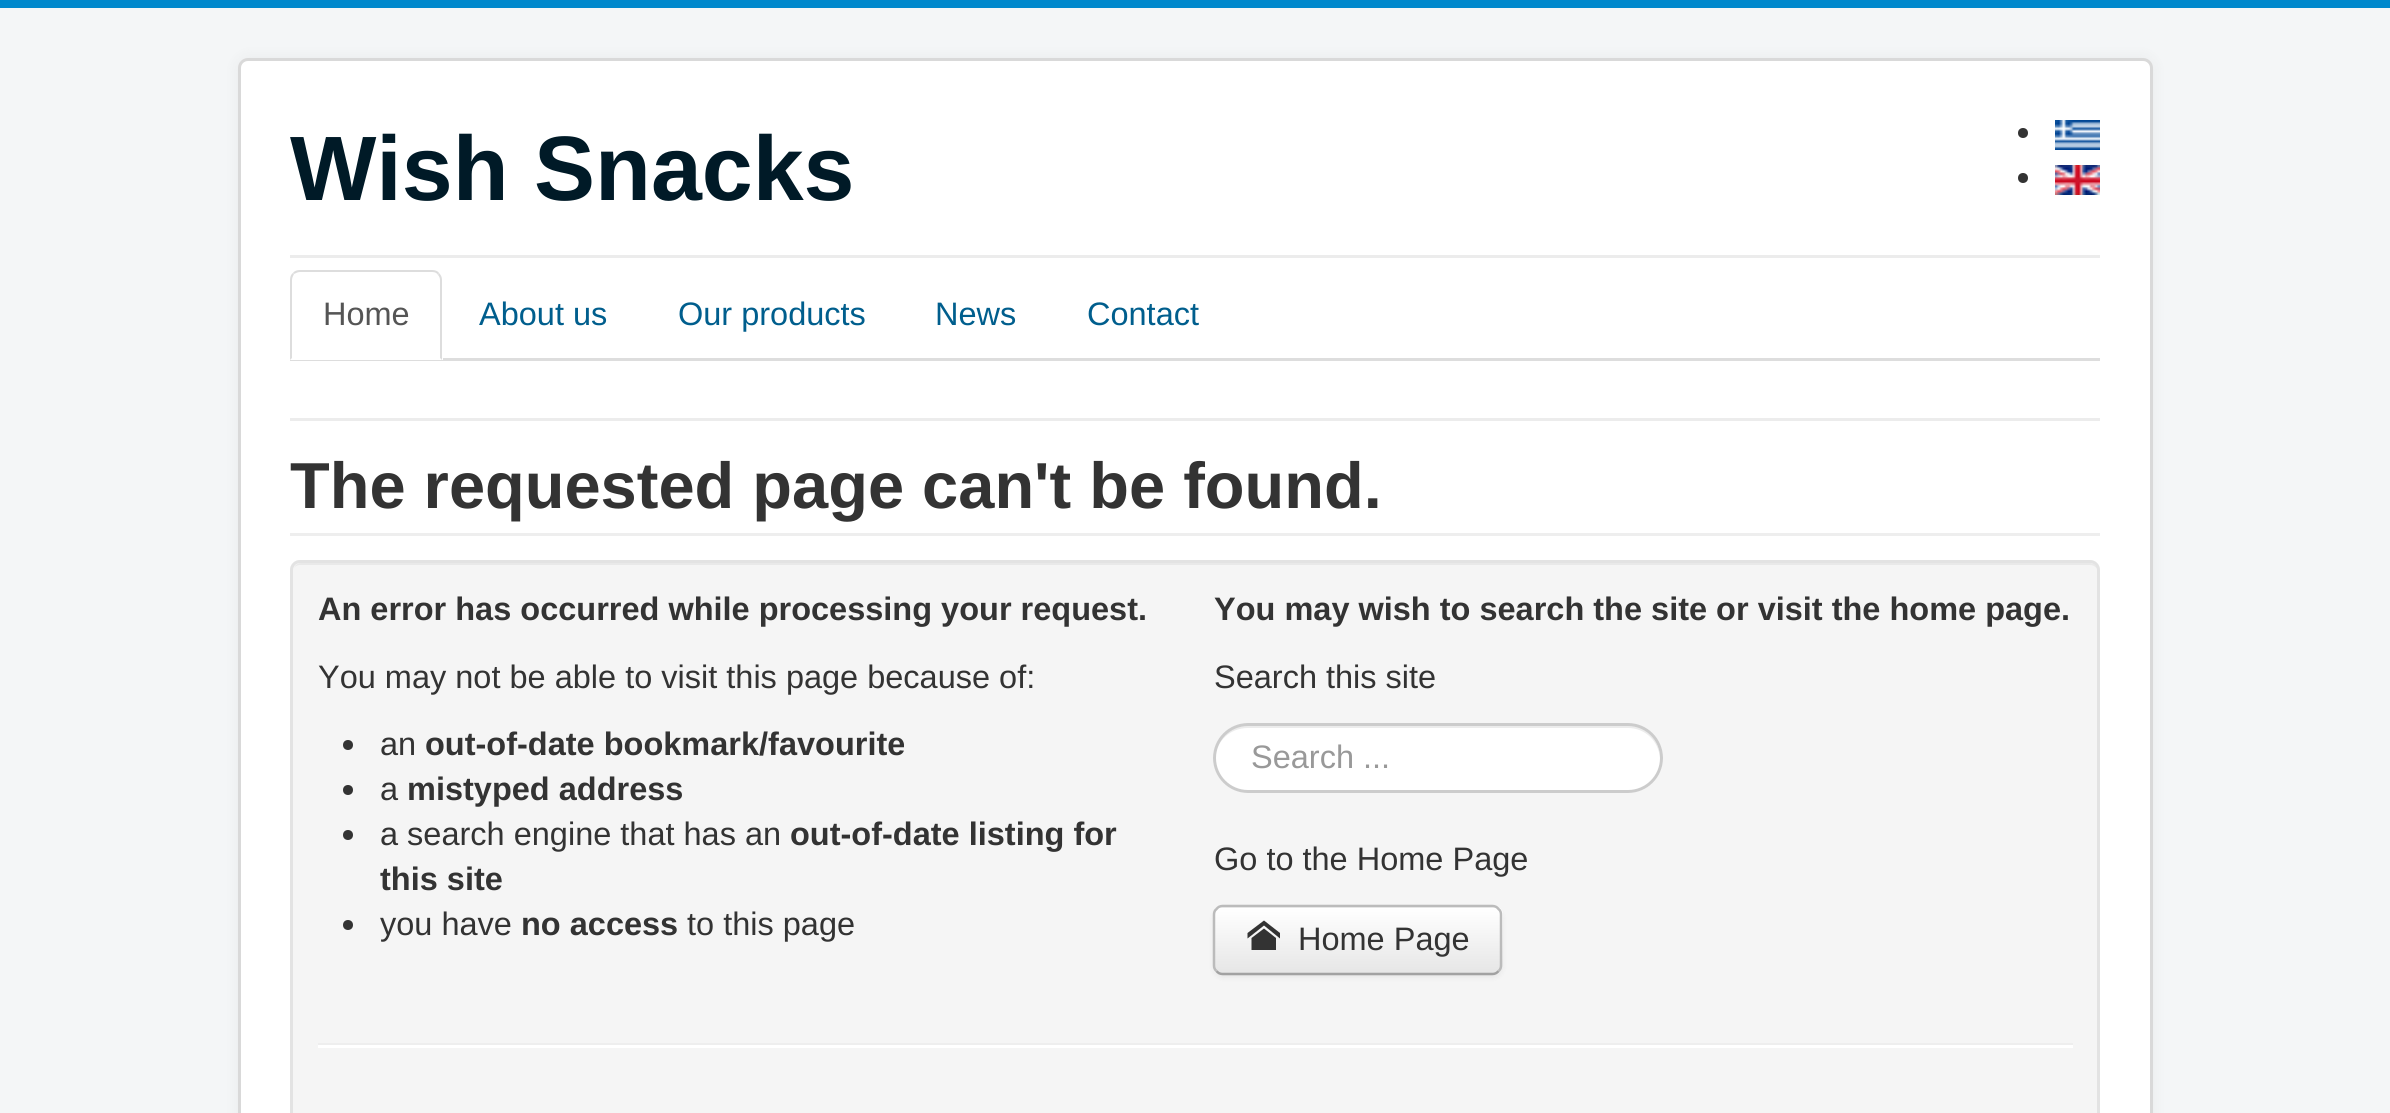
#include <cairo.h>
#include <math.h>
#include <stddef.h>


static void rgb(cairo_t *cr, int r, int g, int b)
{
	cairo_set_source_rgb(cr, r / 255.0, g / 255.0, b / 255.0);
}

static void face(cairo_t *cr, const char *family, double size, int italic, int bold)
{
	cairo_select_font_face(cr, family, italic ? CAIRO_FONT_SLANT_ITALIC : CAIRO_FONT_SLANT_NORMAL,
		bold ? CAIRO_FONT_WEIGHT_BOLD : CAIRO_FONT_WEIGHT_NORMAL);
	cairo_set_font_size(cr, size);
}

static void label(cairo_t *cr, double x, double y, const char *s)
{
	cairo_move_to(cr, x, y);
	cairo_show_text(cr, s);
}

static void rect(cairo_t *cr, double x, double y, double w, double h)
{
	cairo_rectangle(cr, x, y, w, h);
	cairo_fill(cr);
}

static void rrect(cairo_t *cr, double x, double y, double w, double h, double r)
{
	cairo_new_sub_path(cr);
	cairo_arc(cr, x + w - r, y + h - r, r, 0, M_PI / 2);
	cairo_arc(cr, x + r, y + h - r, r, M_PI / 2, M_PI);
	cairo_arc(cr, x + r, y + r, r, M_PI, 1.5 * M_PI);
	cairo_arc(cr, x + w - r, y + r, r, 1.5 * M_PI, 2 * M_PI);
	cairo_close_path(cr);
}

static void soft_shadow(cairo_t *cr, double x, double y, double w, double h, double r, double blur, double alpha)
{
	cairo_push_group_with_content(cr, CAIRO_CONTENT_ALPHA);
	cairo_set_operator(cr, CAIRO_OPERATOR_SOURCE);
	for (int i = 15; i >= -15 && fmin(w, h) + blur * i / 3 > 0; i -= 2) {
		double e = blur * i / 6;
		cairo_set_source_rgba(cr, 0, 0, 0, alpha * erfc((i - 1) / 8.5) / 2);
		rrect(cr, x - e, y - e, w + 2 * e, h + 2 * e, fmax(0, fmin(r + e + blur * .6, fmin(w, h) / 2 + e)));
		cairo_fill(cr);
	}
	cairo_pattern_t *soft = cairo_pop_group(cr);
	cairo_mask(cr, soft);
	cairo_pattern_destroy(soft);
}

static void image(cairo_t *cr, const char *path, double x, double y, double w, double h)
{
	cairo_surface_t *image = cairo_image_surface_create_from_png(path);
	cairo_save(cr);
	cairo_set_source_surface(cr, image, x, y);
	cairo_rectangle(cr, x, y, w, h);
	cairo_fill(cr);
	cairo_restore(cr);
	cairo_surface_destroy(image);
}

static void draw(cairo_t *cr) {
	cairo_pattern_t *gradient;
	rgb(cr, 244, 246, 247);
	cairo_paint(cr);
	rgb(cr, 0, 136, 204);
	rect(cr, 0, 0, 2390, 8);
	rgb(cr, 0, 0, 0);
	soft_shadow(cr, 238, 58, 1915, 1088, 10, 7.5, 0.05);
	rgb(cr, 255, 255, 255);
	rrect(cr, 238, 58, 1915, 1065, 10);
	cairo_fill(cr);
	rrect(cr, 239.5, 59.5, 1912, 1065, 8.5);
	cairo_set_source_rgba(cr, 0, 0, 0, 0.15);
	cairo_set_line_width(cr, 3);
	cairo_stroke(cr);
	face(cr, "Liberation Sans", 91.5, 0, 1);
	rgb(cr, 0, 26, 39);
	label(cr, 290, 200, "Wish Snacks");
	rgb(cr, 51, 51, 51);
	cairo_new_path(cr);
	cairo_arc(cr, 2023, 133, 5, 0, 2 * M_PI);
	cairo_fill(cr);
	image(cr, "image0.png", 2055, 120, 45, 30);
	cairo_arc(cr, 2023, 178, 5, 0, 2 * M_PI);
	cairo_fill(cr);
	image(cr, "image1.png", 2055, 165, 45, 30);
	rgb(cr, 236, 236, 236);
	rect(cr, 290, 255, 1810, 3);
	rect(cr, 290, 418, 1810, 3);
	rgb(cr, 221, 221, 221);
	rect(cr, 290, 358, 1810, 3);
	rgb(cr, 255, 255, 255);
	cairo_new_path(cr);
	cairo_move_to(cr, 300, 270);
	cairo_line_to(cr, 433, 270);
	cairo_curve_to(cr, 438.5, 270, 443, 274.5, 443, 280);
	cairo_line_to(cr, 443, 360);
	cairo_line_to(cr, 290, 360);
	cairo_line_to(cr, 290, 280);
	cairo_curve_to(cr, 290, 274.5, 294.5, 270, 300, 270);
	cairo_close_path(cr);
	cairo_fill(cr);
	rgb(cr, 221, 221, 221);
	cairo_new_path(cr);
	cairo_move_to(cr, 300, 270);
	cairo_curve_to(cr, 297, 270, 294, 271, 293, 273);
	cairo_line_to(cr, 294, 274);
	cairo_curve_to(cr, 296, 273, 298, 272, 300, 272);
	cairo_line_to(cr, 432, 272);
	cairo_curve_to(cr, 435, 272, 437, 273, 438, 275);
	cairo_line_to(cr, 439, 273);
	cairo_curve_to(cr, 438, 271, 435, 270, 432, 270);
	cairo_close_path(cr);
	cairo_fill(cr);
	cairo_new_path(cr);
	cairo_move_to(cr, 439, 273);
	cairo_curve_to(cr, 441, 275, 442, 277, 442, 280);
	cairo_line_to(cr, 442, 360);
	cairo_line_to(cr, 440, 358);
	cairo_line_to(cr, 440, 280);
	cairo_curve_to(cr, 440, 278, 439, 276, 438, 275);
	cairo_close_path(cr);
	cairo_fill(cr);
	cairo_new_path(cr);
	cairo_move_to(cr, 290, 360);
	cairo_line_to(cr, 292, 358);
	cairo_line_to(cr, 292, 280);
	cairo_curve_to(cr, 292, 278, 293, 276, 294, 274);
	cairo_line_to(cr, 293, 273);
	cairo_curve_to(cr, 291, 274, 290, 277, 290, 280);
	cairo_close_path(cr);
	cairo_fill(cr);
	face(cr, "Liberation Sans", 32.5, 0, 0);
	rgb(cr, 85, 85, 85);
	label(cr, 323, 325, "Home");
	rgb(cr, 0, 94, 141);
	label(cr, 479, 325, "About us");
	label(cr, 678, 325, "Our products");
	label(cr, 935, 325, "News");
	label(cr, 1087, 325, "Contact");
	rgb(cr, 238, 238, 238);
	rect(cr, 290, 533, 1810, 3);
	face(cr, "Liberation Sans", 65, 0, 1);
	rgb(cr, 51, 51, 51);
	label(cr, 290, 508, "The requested page can't be found.");
	rgb(cr, 245, 245, 245);
	rrect(cr, 290, 560, 1810, 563, 10);
	cairo_fill(cr);
	rgb(cr, 233, 233, 233);
	cairo_new_path(cr);
	cairo_move_to(cr, 300, 565);
	cairo_line_to(cr, 2090, 565);
	cairo_curve_to(cr, 2094, 565, 2098, 568, 2098, 572);
	cairo_line_to(cr, 2098, 571);
	cairo_curve_to(cr, 2098, 567, 2094, 563, 2090, 563);
	cairo_line_to(cr, 301, 563);
	cairo_curve_to(cr, 298, 563, 295, 565, 294, 568);
	cairo_curve_to(cr, 295, 566, 298, 565, 300, 565);
	cairo_close_path(cr);
	cairo_fill(cr);
	rrect(cr, 291.5, 561.5, 1807, 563, 8.5);
	rgb(cr, 227, 227, 227);
	cairo_stroke(cr);
	face(cr, "Liberation Sans", 32.5, 0, 1);
	rgb(cr, 51, 51, 51);
	label(cr, 318, 620, "An error has occurred while processing your request.");
	face(cr, "Liberation Sans", 32.5, 0, 0);
	label(cr, 318, 688, "You may not be able to visit this page because of:");
	cairo_new_path(cr);
	cairo_arc(cr, 348, 745, 5, 0, 2 * M_PI);
	cairo_fill(cr);
	label(cr, 380, 755, "an");
	face(cr, "Liberation Sans", 32.5, 0, 1);
	label(cr, 425, 755, "out-of-date bookmark/favourite");
	cairo_new_path(cr);
	cairo_arc(cr, 348, 790, 5, 0, 2 * M_PI);
	cairo_fill(cr);
	face(cr, "Liberation Sans", 32.5, 0, 0);
	label(cr, 380, 800, "a");
	face(cr, "Liberation Sans", 32.5, 0, 1);
	label(cr, 407, 800, "mistyped address");
	cairo_new_path(cr);
	cairo_arc(cr, 348, 835, 5, 0, 2 * M_PI);
	cairo_fill(cr);
	face(cr, "Liberation Sans", 32.5, 0, 0);
	label(cr, 380, 845, "a search engine that has an");
	face(cr, "Liberation Sans", 32.5, 0, 1);
	label(cr, 790, 845, "out-of-date listing for");
	label(cr, 380, 890, "this site");
	cairo_new_path(cr);
	cairo_arc(cr, 348, 925, 5, 0, 2 * M_PI);
	cairo_fill(cr);
	face(cr, "Liberation Sans", 32.5, 0, 0);
	label(cr, 380, 935, "you have");
	face(cr, "Liberation Sans", 32.5, 0, 1);
	label(cr, 521, 935, "no access");
	face(cr, "Liberation Sans", 32.5, 0, 0);
	label(cr, 687, 935, "to this page");
	face(cr, "Liberation Sans", 32.5, 0, 1);
	label(cr, 1214, 620, "You may wish to search the site or visit the home page.");
	face(cr, "Liberation Sans", 32.5, 0, 0);
	label(cr, 1214, 688, "Search this site");
	rgb(cr, 255, 255, 255);
	rrect(cr, 1213, 723, 450, 70, 35);
	cairo_fill(cr);
	rgb(cr, 236, 236, 236);
	cairo_new_path(cr);
	cairo_move_to(cr, 1248, 728);
	cairo_line_to(cr, 1628, 728);
	cairo_curve_to(cr, 1645, 728, 1659, 741, 1660, 759);
	cairo_line_to(cr, 1660, 758);
	cairo_curve_to(cr, 1660, 740, 1645, 725, 1628, 725);
	cairo_line_to(cr, 1248, 725);
	cairo_curve_to(cr, 1230, 725, 1215, 740, 1215, 758);
	cairo_line_to(cr, 1215, 759);
	cairo_curve_to(cr, 1216, 741, 1230, 728, 1248, 728);
	cairo_close_path(cr);
	cairo_fill(cr);
	rrect(cr, 1214.5, 724.5, 447, 67, 33.5);
	rgb(cr, 204, 204, 204);
	cairo_stroke(cr);
	rgb(cr, 153, 153, 153);
	label(cr, 1251, 768, "Search ...");
	rgb(cr, 51, 51, 51);
	label(cr, 1214, 870, "Go to the Home Page");
	rgb(cr, 0, 0, 0);
	soft_shadow(cr, 1213, 908, 290, 70, 10, 2.5, 0.05);
	rgb(cr, 245, 245, 245);
	rrect(cr, 1213, 905, 290, 70, 10);
	cairo_fill(cr);
	cairo_save(cr);
	rrect(cr, 1213, 905, 290, 70, 10);
	cairo_clip(cr);
	gradient = cairo_pattern_create_linear(1358, 908, 1358, 973);
	cairo_pattern_add_color_stop_rgba(gradient, 0, 1, 1, 1, 1);
	cairo_pattern_add_color_stop_rgba(gradient, 1, 0.902, 0.902, 0.902, 1);
	cairo_set_source(cr, gradient);
	cairo_pattern_destroy(gradient);
	rect(cr, 1213, 908, 290, 65);
	cairo_restore(cr);
	cairo_new_path(cr);
	cairo_move_to(cr, 1498.5, 971);
	cairo_curve_to(cr, 1497, 973, 1495, 974, 1492.5, 974);
	cairo_line_to(cr, 1222.5, 974);
	cairo_curve_to(cr, 1220, 974, 1218, 973, 1216.5, 971);
	rgb(cr, 162, 162, 162);
	cairo_set_line_width(cr, 2.5);
	cairo_stroke(cr);
	cairo_new_path(cr);
	cairo_move_to(cr, 1216.5, 971);
	cairo_curve_to(cr, 1214.5, 969.5, 1214, 967.5, 1214, 965);
	cairo_line_to(cr, 1214, 915);
	cairo_curve_to(cr, 1214, 912.5, 1214.5, 910.5, 1216.5, 909);
	cairo_curve_to(cr, 1218, 907, 1220, 906, 1222.5, 906);
	cairo_line_to(cr, 1492.5, 906);
	cairo_curve_to(cr, 1495, 906, 1497, 907, 1498.5, 909);
	cairo_curve_to(cr, 1500.5, 910.5, 1501, 912.5, 1501, 915);
	cairo_line_to(cr, 1501, 965);
	cairo_curve_to(cr, 1501, 967.5, 1500.5, 969.5, 1498.5, 971);
	rgb(cr, 187, 187, 187);
	cairo_stroke(cr);
	rgb(cr, 51, 51, 51);
	cairo_new_path(cr);
	cairo_move_to(cr, 1280, 938.5);
	cairo_line_to(cr, 1280, 933);
	cairo_line_to(cr, 1264, 920.5);
	cairo_line_to(cr, 1247.5, 933);
	cairo_line_to(cr, 1247.5, 938.5);
	cairo_line_to(cr, 1264, 925.5);
	cairo_close_path(cr);
	cairo_move_to(cr, 1276, 938);
	cairo_line_to(cr, 1264, 928.5);
	cairo_line_to(cr, 1251.5, 938);
	cairo_line_to(cr, 1251.5, 950);
	cairo_line_to(cr, 1276, 950);
	cairo_close_path(cr);
	cairo_fill(cr);
	label(cr, 1298, 950, "Home Page");
	rgb(cr, 238, 238, 238);
	rect(cr, 318, 1043, 1755, 2);
	rgb(cr, 255, 255, 255);
	rect(cr, 318, 1045, 1755, 3);
}

int main(void) {
	cairo_surface_t *surface = cairo_image_surface_create(CAIRO_FORMAT_RGB24, 2390, 1113);
	cairo_t *cr = cairo_create(surface);
	cairo_font_options_t *options = cairo_font_options_create();
	cairo_font_options_set_hint_metrics(options, CAIRO_HINT_METRICS_OFF);
	cairo_font_options_set_hint_style(options, CAIRO_HINT_STYLE_NONE);
	cairo_set_font_options(cr, options);
	cairo_set_miter_limit(cr, 4);
	draw(cr);
	cairo_surface_write_to_png(surface, "render.png");
	cairo_font_options_destroy(options);
	cairo_destroy(cr);
	cairo_surface_destroy(surface);
	return 0;
}
